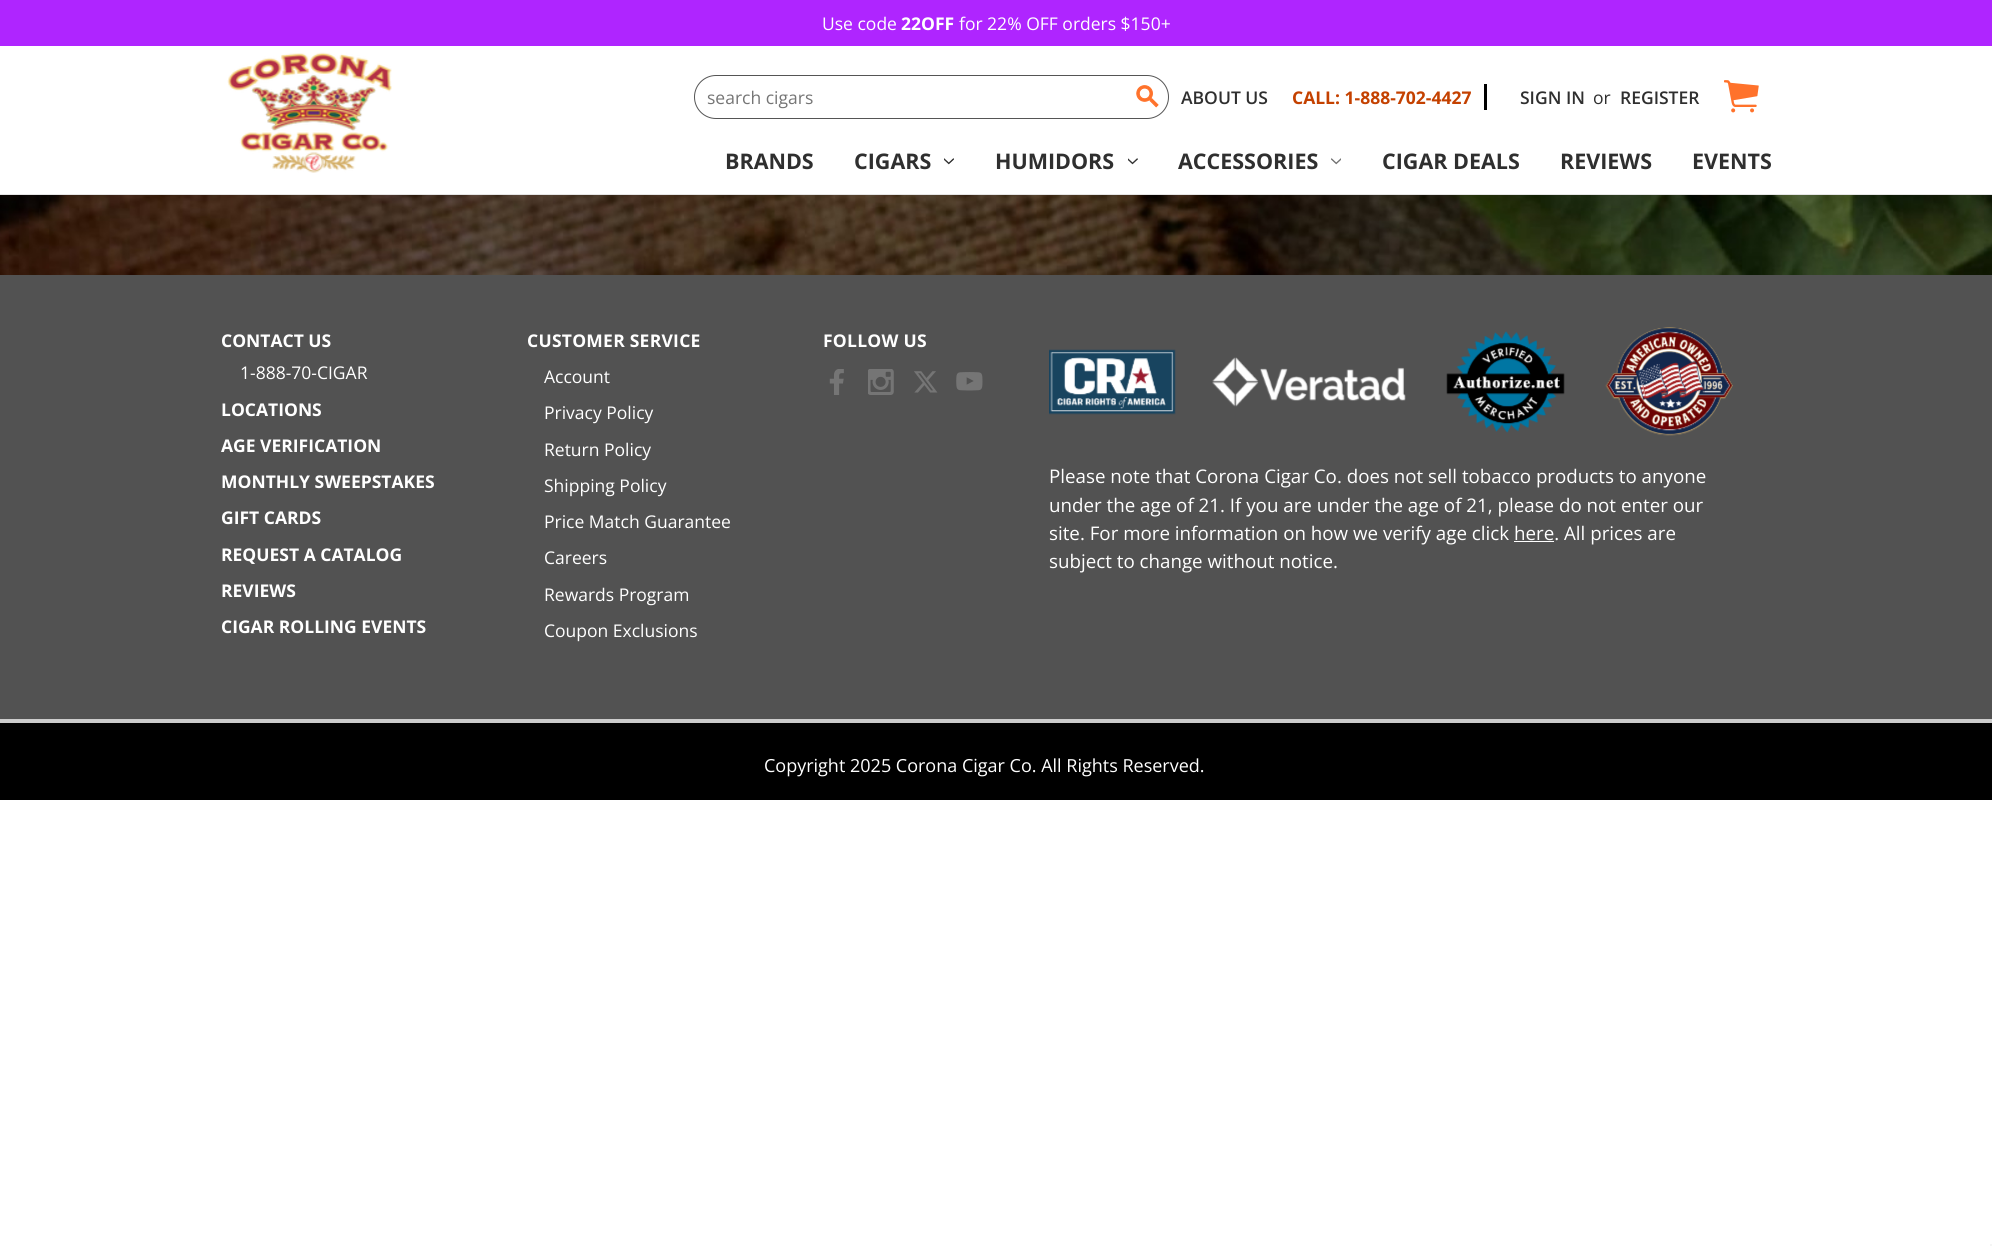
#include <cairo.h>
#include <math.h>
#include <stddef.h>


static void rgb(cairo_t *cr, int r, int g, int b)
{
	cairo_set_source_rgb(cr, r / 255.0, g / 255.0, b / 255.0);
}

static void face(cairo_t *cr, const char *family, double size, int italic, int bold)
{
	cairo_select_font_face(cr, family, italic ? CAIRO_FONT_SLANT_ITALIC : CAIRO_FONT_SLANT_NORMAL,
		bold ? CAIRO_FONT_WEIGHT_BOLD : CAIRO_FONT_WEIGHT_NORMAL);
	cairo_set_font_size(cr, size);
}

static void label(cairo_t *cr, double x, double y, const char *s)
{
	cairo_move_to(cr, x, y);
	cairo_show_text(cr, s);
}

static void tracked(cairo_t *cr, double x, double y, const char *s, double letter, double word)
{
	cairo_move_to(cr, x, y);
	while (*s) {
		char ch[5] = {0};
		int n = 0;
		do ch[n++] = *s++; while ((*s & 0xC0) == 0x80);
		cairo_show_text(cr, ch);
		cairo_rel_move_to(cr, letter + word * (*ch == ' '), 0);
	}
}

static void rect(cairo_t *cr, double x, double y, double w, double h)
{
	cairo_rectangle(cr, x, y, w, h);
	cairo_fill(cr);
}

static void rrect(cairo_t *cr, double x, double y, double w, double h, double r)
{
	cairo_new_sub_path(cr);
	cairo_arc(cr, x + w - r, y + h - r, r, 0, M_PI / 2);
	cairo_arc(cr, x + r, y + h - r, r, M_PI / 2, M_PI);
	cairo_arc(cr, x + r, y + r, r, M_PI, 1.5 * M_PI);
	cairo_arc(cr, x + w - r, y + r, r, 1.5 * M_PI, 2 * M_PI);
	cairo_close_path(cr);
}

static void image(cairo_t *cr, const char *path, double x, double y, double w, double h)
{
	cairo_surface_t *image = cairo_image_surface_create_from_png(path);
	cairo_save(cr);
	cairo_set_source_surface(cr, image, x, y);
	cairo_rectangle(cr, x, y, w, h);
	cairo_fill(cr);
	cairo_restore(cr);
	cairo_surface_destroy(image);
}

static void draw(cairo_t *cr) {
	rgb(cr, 255, 255, 255);
	cairo_paint(cr);
	rgb(cr, 175, 37, 255);
	rect(cr, 0, 0, 1992, 46);
	face(cr, "Open Sans", 17.5, 0, 0);
	rgb(cr, 255, 255, 255);
	label(cr, 822, 30, "Use code");
	face(cr, "Open Sans", 17.5, 0, 1);
	label(cr, 901, 30, "22OFF");
	face(cr, "Open Sans", 17.5, 0, 0);
	label(cr, 959, 30, "for 22% OFF orders $150+");
	image(cr, "image0.png", 227, 52, 165, 121);
	rrect(cr, 694.5, 75.5, 474, 43, 21.5);
	rgb(cr, 85, 85, 85);
	cairo_set_line_width(cr, 1);
	cairo_stroke(cr);
	rgb(cr, 117, 117, 117);
	label(cr, 707, 104, "search cigars");
	image(cr, "image1.png", 1136, 85, 23, 23);
	face(cr, "Open Sans SemiBold", 17.5, 0, 0);
	rgb(cr, 47, 47, 47);
	label(cr, 1181, 104, "ABOUT US");
	face(cr, "Open Sans", 17.5, 0, 1);
	rgb(cr, 196, 65, 0);
	label(cr, 1292, 104, "CALL: 1-888-702-4427");
	rgb(cr, 0, 0, 0);
	rect(cr, 1484, 84, 3, 26);
	face(cr, "Open Sans SemiBold", 17.5, 0, 0);
	rgb(cr, 47, 47, 47);
	label(cr, 1520, 104, "SIGN IN");
	face(cr, "Open Sans", 17.5, 0, 0);
	label(cr, 1593, 104, "or");
	face(cr, "Open Sans SemiBold", 17.5, 0, 0);
	label(cr, 1620, 104, "REGISTER");
	image(cr, "image2.png", 1724, 80, 35, 33);
	face(cr, "Open Sans", 21.5, 0, 1);
	label(cr, 725, 169, "BRANDS");
	label(cr, 854, 169, "CIGARS");
	image(cr, "image3.png", 944, 158, 10, 7);
	label(cr, 995, 169, "HUMIDORS");
	image(cr, "image4.png", 1128, 158, 10, 7);
	label(cr, 1178, 169, "ACCESSORIES");
	image(cr, "image5.png", 1331, 158, 10, 7);
	label(cr, 1382, 169, "CIGAR DEALS");
	label(cr, 1560, 169, "REVIEWS");
	label(cr, 1692, 169, "EVENTS");
	rgb(cr, 229, 229, 229);
	rect(cr, 0, 194, 1992, 1);
	image(cr, "image6.png", 0, 195, 1992, 80);
	rgb(cr, 82, 82, 82);
	rect(cr, 0, 275, 1992, 444);
	face(cr, "Open Sans", 17.5, 0, 1);
	rgb(cr, 255, 255, 255);
	label(cr, 221, 347, "CONTACT US");
	face(cr, "Open Sans", 17.5, 0, 0);
	label(cr, 240, 379, "1-888-70-CIGAR");
	face(cr, "Open Sans", 17.5, 0, 1);
	label(cr, 221, 416, "LOCATIONS");
	label(cr, 221, 452, "AGE VERIFICATION");
	label(cr, 221, 488, "MONTHLY SWEEPSTAKES");
	label(cr, 221, 524, "GIFT CARDS");
	label(cr, 221, 561, "REQUEST A CATALOG");
	label(cr, 221, 597, "REVIEWS");
	label(cr, 221, 633, "CIGAR ROLLING EVENTS");
	tracked(cr, 527, 347, "CUSTOMER SERVICE", 0.25, 0);
	face(cr, "Open Sans", 17.5, 0, 0);
	label(cr, 544, 383, "Account");
	label(cr, 544, 419, "Privacy Policy");
	label(cr, 544, 456, "Return Policy");
	label(cr, 544, 492, "Shipping Policy");
	label(cr, 544, 528, "Price Match Guarantee");
	label(cr, 544, 564, "Careers");
	label(cr, 544, 601, "Rewards Program");
	label(cr, 544, 637, "Coupon Exclusions");
	face(cr, "Open Sans", 17.5, 0, 1);
	tracked(cr, 823, 347, "FOLLOW US", 0.25, 0);
	image(cr, "image7.png", 829, 369, 15, 26);
	image(cr, "image8.png", 868, 369, 26, 26);
	image(cr, "image9.png", 914, 371, 24, 22);
	image(cr, "image10.png", 956, 372, 27, 19);
	image(cr, "image11.png", 1049, 349, 127, 66);
	image(cr, "image12.png", 1212, 357, 194, 50);
	image(cr, "image13.png", 1446, 331, 119, 102);
	image(cr, "image14.png", 1605, 327, 128, 109);
	face(cr, "Open Sans", 18.75, 0, 0);
	label(cr, 1049, 483, "Please note that Corona Cigar Co. does not sell tobacco products to anyone");
	label(cr, 1049, 512, "under the age of 21. If you are under the age of 21, please do not enter our");
	label(cr, 1049, 540, "site. For more information on how we verify age click here. All prices are");
	rect(cr, 1514, 541, 40, 1);
	label(cr, 1049, 568, "subject to change without notice.");
	rgb(cr, 0, 0, 0);
	rect(cr, 0, 723, 1992, 77);
	rgb(cr, 204, 204, 204);
	rect(cr, 0, 719, 1992, 4);
	face(cr, "Open Sans", 18, 0, 0);
	rgb(cr, 255, 255, 255);
	label(cr, 764, 772, "Copyright 2025 Corona Cigar Co. All Rights Reserved.");
	rgb(cr, 245, 245, 245);
	rect(cr, 1990, 1244, 2, 2);
}

int main(void) {
	cairo_surface_t *surface = cairo_image_surface_create(CAIRO_FORMAT_RGB24, 1992, 1246);
	cairo_t *cr = cairo_create(surface);
	cairo_font_options_t *options = cairo_font_options_create();
	cairo_font_options_set_hint_metrics(options, CAIRO_HINT_METRICS_OFF);
	cairo_font_options_set_hint_style(options, CAIRO_HINT_STYLE_NONE);
	cairo_set_font_options(cr, options);
	cairo_set_miter_limit(cr, 4);
	draw(cr);
	cairo_surface_write_to_png(surface, "render.png");
	cairo_font_options_destroy(options);
	cairo_destroy(cr);
	cairo_surface_destroy(surface);
	return 0;
}
